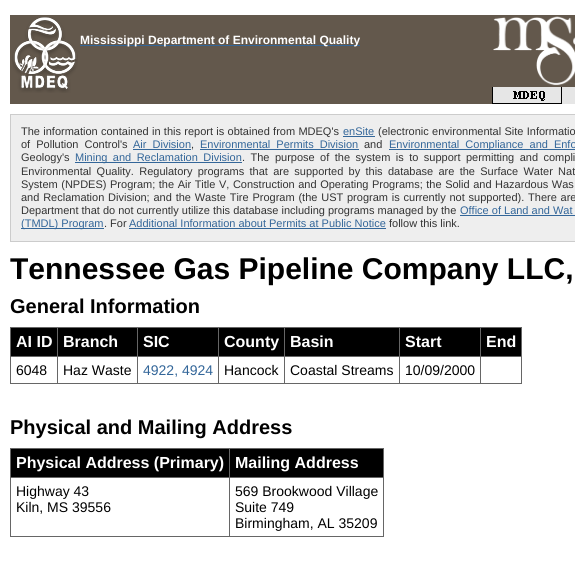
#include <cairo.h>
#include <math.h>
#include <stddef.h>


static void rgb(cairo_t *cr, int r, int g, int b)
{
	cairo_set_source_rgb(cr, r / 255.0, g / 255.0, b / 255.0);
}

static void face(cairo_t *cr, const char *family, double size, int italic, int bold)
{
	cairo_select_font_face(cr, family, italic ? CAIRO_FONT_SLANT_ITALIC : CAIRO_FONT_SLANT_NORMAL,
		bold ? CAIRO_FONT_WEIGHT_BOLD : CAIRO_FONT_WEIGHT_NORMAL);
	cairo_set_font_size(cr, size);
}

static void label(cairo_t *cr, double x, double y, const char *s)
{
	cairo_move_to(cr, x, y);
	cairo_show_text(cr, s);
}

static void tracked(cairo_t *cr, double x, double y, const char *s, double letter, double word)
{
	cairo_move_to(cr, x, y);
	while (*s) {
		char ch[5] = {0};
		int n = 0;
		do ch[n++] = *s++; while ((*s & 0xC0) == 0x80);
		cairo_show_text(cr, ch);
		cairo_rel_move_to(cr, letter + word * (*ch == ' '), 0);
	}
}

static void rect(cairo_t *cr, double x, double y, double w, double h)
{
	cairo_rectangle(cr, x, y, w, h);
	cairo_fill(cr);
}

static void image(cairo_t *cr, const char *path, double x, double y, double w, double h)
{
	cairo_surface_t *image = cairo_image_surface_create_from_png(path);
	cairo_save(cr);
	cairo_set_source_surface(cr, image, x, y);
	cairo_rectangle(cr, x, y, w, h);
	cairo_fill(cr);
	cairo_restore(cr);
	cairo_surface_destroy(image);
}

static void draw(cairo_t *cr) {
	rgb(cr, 255, 255, 255);
	cairo_paint(cr);
	rgb(cr, 99, 88, 76);
	rect(cr, 10, 15, 482, 89);
	image(cr, "image0.png", 12, 17, 66, 76);
	rect(cr, 492, 15, 83, 72);
	image(cr, "image1.png", 493, 16, 82, 70);
	image(cr, "image2.png", 492, 87, 70, 17);
	rgb(cr, 230, 230, 230);
	rect(cr, 562, 87, 13, 17);
	rgb(cr, 51, 102, 153);
	rect(cr, 80, 45, 280, 1);
	face(cr, "Liberation Sans", 12, 0, 1);
	rgb(cr, 255, 255, 255);
	label(cr, 80, 44, "Mississippi Department of Environmental Quality");
	rgb(cr, 238, 238, 238);
	cairo_rectangle(cr, 10.5, 114.5, 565, 127);
	cairo_fill_preserve(cr);
	rgb(cr, 204, 204, 204);
	cairo_set_line_width(cr, 1);
	cairo_stroke(cr);
	face(cr, "Liberation Sans", 11, 0, 0);
	rgb(cr, 51, 51, 51);
	tracked(cr, 21, 135, "The information contained in this report is obtained from MDEQ's", 0, 0.25);
	rgb(cr, 51, 102, 153);
	label(cr, 343, 135, "enSite");
	rect(cr, 343, 136, 32, 1);
	rgb(cr, 51, 51, 51);
	tracked(cr, 378, 135, "(electronic environmental Site Informatio", 0, 0.25);
	tracked(cr, 21, 148, "of Pollution Control's", 0, 3);
	rgb(cr, 51, 102, 153);
	tracked(cr, 133, 148, "Air Division", 0, 3);
	rect(cr, 133, 149, 58, 1);
	rgb(cr, 51, 51, 51);
	label(cr, 191, 148, ",");
	rgb(cr, 51, 102, 153);
	tracked(cr, 200, 148, "Environmental Permits Division", 0, 3);
	rect(cr, 200, 149, 159, 1);
	rgb(cr, 51, 51, 51);
	label(cr, 364, 148, "and");
	rgb(cr, 51, 102, 153);
	rect(cr, 389, 149, 186, 1);
	tracked(cr, 389, 148, "Environmental Compliance and Enfo", 0, 3);
	rgb(cr, 51, 51, 51);
	label(cr, 21, 161, "Geology's");
	rgb(cr, 51, 102, 153);
	rect(cr, 75, 162, 167, 1);
	tracked(cr, 75, 161, "Mining and Reclamation Division", 0, 2.4);
	rgb(cr, 51, 51, 51);
	tracked(cr, 242, 161, ". The purpose of the system is to support permitting and compli", 0, 2.4);
	tracked(cr, 21, 175, "Environmental Quality. Regulatory programs that are supported by this database are the Surface Water Nat", 0, 2.25);
	tracked(cr, 21, 188, "System (NPDES) Program; the Air Title V, Construction and Operating Programs; the Solid and Hazardous Was", 0, 0.5);
	tracked(cr, 21, 201, "and Reclamation Division; and the Waste Tire Program (the UST program is currently not supported). There are", 0, 0.75);
	label(cr, 21, 214, "Department that do not currently utilize this database including programs managed by the");
	rgb(cr, 51, 102, 153);
	label(cr, 460, 214, "Office of Land and Wat");
	rect(cr, 460, 215, 115, 1);
	rect(cr, 21, 228, 83, 1);
	label(cr, 21, 227, "(TMDL) Program");
	rgb(cr, 51, 51, 51);
	label(cr, 104, 227, ". For");
	rgb(cr, 51, 102, 153);
	label(cr, 129, 227, "Additional Information about Permits at Public Notice");
	rect(cr, 129, 228, 257, 1);
	rgb(cr, 51, 51, 51);
	label(cr, 389, 227, "follow this link.");
	face(cr, "Liberation Sans", 30, 0, 1);
	rgb(cr, 0, 0, 0);
	label(cr, 10, 279, "Tennessee Gas Pipeline Company LLC,");
	face(cr, "Liberation Sans", 20, 0, 1);
	label(cr, 10, 313, "General Information");
	rect(cr, 11, 328, 46, 28);
	rgb(cr, 102, 102, 102);
	rect(cr, 480, 327, 42, 1);
	rect(cr, 480, 356, 42, 1);
	rect(cr, 521, 356, 1, 28);
	rect(cr, 480, 383, 42, 1);
	rect(cr, 480, 356, 1, 28);
	rect(cr, 399, 356, 82, 1);
	rect(cr, 480, 327, 1, 30);
	rect(cr, 399, 327, 82, 1);
	rect(cr, 399, 383, 82, 1);
	rect(cr, 399, 356, 1, 28);
	rect(cr, 284, 356, 116, 1);
	rect(cr, 399, 327, 1, 30);
	rect(cr, 284, 327, 116, 1);
	rect(cr, 284, 383, 116, 1);
	rect(cr, 284, 356, 1, 28);
	rect(cr, 218, 356, 67, 1);
	rect(cr, 284, 327, 1, 30);
	rect(cr, 218, 327, 67, 1);
	rect(cr, 218, 383, 67, 1);
	rect(cr, 218, 356, 1, 28);
	rect(cr, 137, 356, 82, 1);
	rect(cr, 218, 327, 1, 30);
	rect(cr, 137, 327, 82, 1);
	rect(cr, 137, 383, 82, 1);
	rect(cr, 137, 356, 1, 28);
	rect(cr, 57, 356, 81, 1);
	rect(cr, 137, 327, 1, 30);
	rect(cr, 57, 327, 81, 1);
	rect(cr, 57, 383, 81, 1);
	rect(cr, 57, 356, 1, 28);
	rect(cr, 10, 356, 48, 1);
	rect(cr, 57, 327, 1, 30);
	rect(cr, 10, 327, 48, 1);
	rect(cr, 10, 383, 48, 1);
	rect(cr, 10, 356, 1, 28);
	rect(cr, 10, 327, 1, 30);
	face(cr, "Liberation Sans", 16, 0, 1);
	rgb(cr, 255, 255, 255);
	label(cr, 16, 347, "AI ID");
	rgb(cr, 0, 0, 0);
	rect(cr, 58, 328, 79, 28);
	rgb(cr, 255, 255, 255);
	label(cr, 63, 347, "Branch");
	rgb(cr, 0, 0, 0);
	rect(cr, 138, 328, 80, 28);
	rgb(cr, 255, 255, 255);
	label(cr, 143, 347, "SIC");
	rgb(cr, 0, 0, 0);
	rect(cr, 219, 328, 65, 28);
	rgb(cr, 255, 255, 255);
	label(cr, 224, 347, "County");
	rgb(cr, 0, 0, 0);
	rect(cr, 285, 328, 114, 28);
	rgb(cr, 255, 255, 255);
	label(cr, 290, 347, "Basin");
	rgb(cr, 0, 0, 0);
	rect(cr, 400, 328, 80, 28);
	rgb(cr, 255, 255, 255);
	label(cr, 405, 347, "Start");
	rgb(cr, 0, 0, 0);
	rect(cr, 481, 328, 40, 28);
	rgb(cr, 102, 102, 102);
	rect(cr, 521, 327, 1, 30);
	rgb(cr, 255, 255, 255);
	label(cr, 486, 347, "End");
	face(cr, "Liberation Sans", 14, 0, 0);
	rgb(cr, 0, 0, 0);
	label(cr, 16, 375, "6048");
	label(cr, 63, 375, "Haz Waste");
	rgb(cr, 51, 102, 153);
	label(cr, 143, 375, "4922, 4924");
	rgb(cr, 0, 0, 0);
	label(cr, 224, 375, "Hancock");
	label(cr, 290, 375, "Coastal Streams");
	label(cr, 405, 375, "10/09/2000");
	face(cr, "Liberation Sans", 20, 0, 1);
	label(cr, 10, 434, "Physical and Mailing Address");
	rect(cr, 11, 449, 218, 28);
	rgb(cr, 102, 102, 102);
	rect(cr, 229, 448, 155, 1);
	rect(cr, 229, 477, 155, 1);
	rect(cr, 383, 477, 1, 60);
	rect(cr, 229, 536, 155, 1);
	rect(cr, 229, 477, 1, 60);
	rect(cr, 10, 477, 220, 1);
	rect(cr, 229, 448, 1, 30);
	rect(cr, 10, 448, 220, 1);
	rect(cr, 10, 536, 220, 1);
	rect(cr, 10, 477, 1, 60);
	rect(cr, 10, 448, 1, 30);
	face(cr, "Liberation Sans", 16, 0, 1);
	rgb(cr, 255, 255, 255);
	label(cr, 16, 468, "Physical Address (Primary)");
	rgb(cr, 0, 0, 0);
	rect(cr, 230, 449, 153, 28);
	rgb(cr, 102, 102, 102);
	rect(cr, 383, 448, 1, 30);
	rgb(cr, 255, 255, 255);
	label(cr, 235, 468, "Mailing Address");
	face(cr, "Liberation Sans", 14, 0, 0);
	rgb(cr, 0, 0, 0);
	label(cr, 16, 496, "Highway 43");
	label(cr, 16, 512, "Kiln, MS 39556");
	label(cr, 235, 496, "569 Brookwood Village");
	label(cr, 235, 512, "Suite 749");
	label(cr, 235, 528, "Birmingham, AL 35209");
}

int main(void) {
	cairo_surface_t *surface = cairo_image_surface_create(CAIRO_FORMAT_RGB24, 575, 575);
	cairo_t *cr = cairo_create(surface);
	cairo_font_options_t *options = cairo_font_options_create();
	cairo_font_options_set_hint_metrics(options, CAIRO_HINT_METRICS_OFF);
	cairo_font_options_set_hint_style(options, CAIRO_HINT_STYLE_NONE);
	cairo_set_font_options(cr, options);
	cairo_set_miter_limit(cr, 4);
	draw(cr);
	cairo_surface_write_to_png(surface, "render.png");
	cairo_font_options_destroy(options);
	cairo_destroy(cr);
	cairo_surface_destroy(surface);
	return 0;
}
